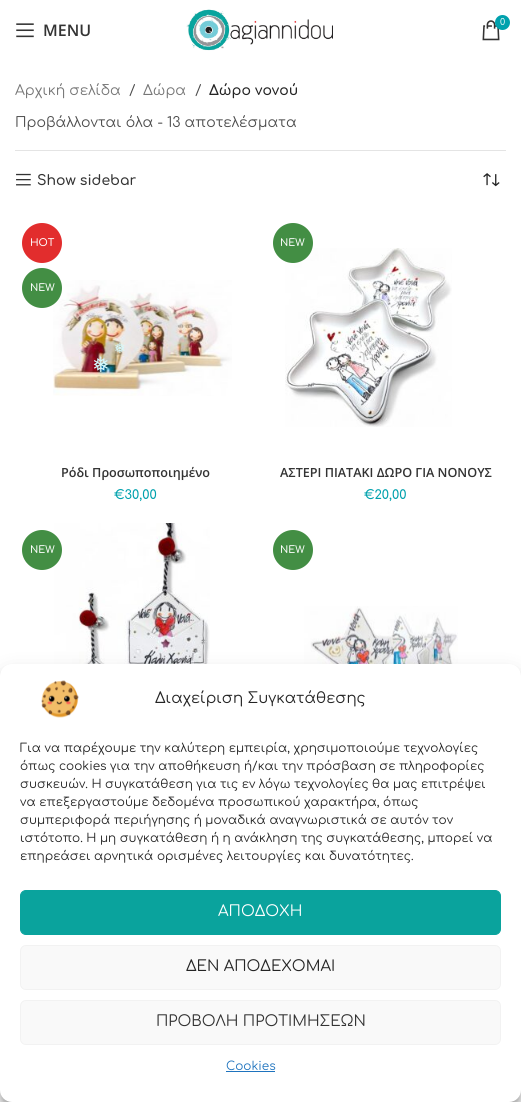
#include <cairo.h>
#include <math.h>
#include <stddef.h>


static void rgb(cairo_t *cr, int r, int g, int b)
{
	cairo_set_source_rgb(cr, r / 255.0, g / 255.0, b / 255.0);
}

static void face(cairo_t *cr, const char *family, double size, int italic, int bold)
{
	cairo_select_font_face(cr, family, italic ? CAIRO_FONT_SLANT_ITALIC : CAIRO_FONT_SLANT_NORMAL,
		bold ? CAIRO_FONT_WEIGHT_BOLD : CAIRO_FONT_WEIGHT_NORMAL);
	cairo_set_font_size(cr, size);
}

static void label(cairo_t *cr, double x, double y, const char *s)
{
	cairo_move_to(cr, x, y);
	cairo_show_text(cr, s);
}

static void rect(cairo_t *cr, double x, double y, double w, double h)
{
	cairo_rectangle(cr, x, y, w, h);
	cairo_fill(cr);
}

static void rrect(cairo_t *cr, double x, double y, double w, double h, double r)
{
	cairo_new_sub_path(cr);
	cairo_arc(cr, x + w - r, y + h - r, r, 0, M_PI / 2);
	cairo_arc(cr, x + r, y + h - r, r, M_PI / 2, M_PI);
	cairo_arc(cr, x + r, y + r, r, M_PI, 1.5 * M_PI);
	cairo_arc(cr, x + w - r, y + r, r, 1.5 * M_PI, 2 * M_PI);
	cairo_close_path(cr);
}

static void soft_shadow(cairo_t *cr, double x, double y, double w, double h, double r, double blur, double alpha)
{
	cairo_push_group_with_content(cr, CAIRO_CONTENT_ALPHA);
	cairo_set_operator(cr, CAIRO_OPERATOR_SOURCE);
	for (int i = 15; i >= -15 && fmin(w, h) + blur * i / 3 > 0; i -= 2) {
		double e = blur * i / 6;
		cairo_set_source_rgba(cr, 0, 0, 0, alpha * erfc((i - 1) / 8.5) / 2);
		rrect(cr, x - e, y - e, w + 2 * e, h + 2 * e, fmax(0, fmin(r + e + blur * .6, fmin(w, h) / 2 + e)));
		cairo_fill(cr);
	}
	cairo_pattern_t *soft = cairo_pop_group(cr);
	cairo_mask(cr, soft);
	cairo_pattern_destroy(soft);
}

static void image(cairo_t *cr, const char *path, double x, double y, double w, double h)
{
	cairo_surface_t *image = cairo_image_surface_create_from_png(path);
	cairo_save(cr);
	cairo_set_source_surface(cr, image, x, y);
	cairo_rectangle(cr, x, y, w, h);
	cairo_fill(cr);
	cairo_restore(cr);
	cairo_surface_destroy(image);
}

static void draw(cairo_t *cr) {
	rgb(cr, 255, 255, 255);
	cairo_paint(cr);
	image(cr, "image0.png", 186, 9, 147, 42);
	image(cr, "image1.png", 482, 20, 18, 21);
	rgb(cr, 0, 161, 173);
	cairo_arc(cr, 502.5, 22.5, 7.5, 0, 2 * M_PI);
	cairo_fill(cr);
	face(cr, "Comfortaa", 9, 0, 0);
	rgb(cr, 255, 255, 255);
	label(cr, 500, 25, "0");
	image(cr, "image2.png", 16, 23, 18, 15);
	face(cr, "Open Sans SemiBold", 16, 0, 0);
	rgb(cr, 51, 51, 51);
	label(cr, 43, 36, "MENU");
	rgb(cr, 228, 228, 228);
	rect(cr, 15, 150, 491, 1);
	face(cr, "Comfortaa", 14, 0, 0);
	rgb(cr, 118, 118, 118);
	label(cr, 15, 95, "Αρχική σελίδα");
	rgb(cr, 76, 76, 76);
	label(cr, 129, 95, "/");
	rgb(cr, 118, 118, 118);
	label(cr, 143, 95, "Δώρα");
	rgb(cr, 76, 76, 76);
	label(cr, 195, 95, "/");
	face(cr, "Comfortaa SemiBold", 14, 0, 0);
	rgb(cr, 36, 36, 36);
	label(cr, 209, 95, "Δώρο νονού");
	face(cr, "Comfortaa", 14, 0, 0);
	rgb(cr, 76, 76, 76);
	label(cr, 15, 127, "Προβάλλονται όλα - 13 αποτελέσματα");
	image(cr, "image3.png", 16, 173, 15, 13);
	face(cr, "Comfortaa SemiBold", 14, 0, 0);
	rgb(cr, 51, 51, 51);
	label(cr, 37, 185, "Show sidebar");
	image(cr, "image4.png", 483, 173, 17, 14);
	rgb(cr, 226, 45, 45);
	cairo_arc(cr, 42, 243, 20, 0, 2 * M_PI);
	cairo_fill(cr);
	face(cr, "Comfortaa SemiBold", 10, 0, 0);
	rgb(cr, 255, 255, 255);
	label(cr, 30, 246, "HOT");
	image(cr, "image5.png", 53, 280, 179, 116);
	rgb(cr, 67, 142, 68);
	cairo_arc(cr, 42, 288, 20, 0, 2 * M_PI);
	cairo_fill(cr);
	rgb(cr, 255, 255, 255);
	label(cr, 30, 291, "NEW");
	face(cr, "Open Sans SemiBold", 12.6, 0, 0);
	rgb(cr, 51, 51, 51);
	label(cr, 61, 477, "Ρόδι Προσωποποιημένο");
	face(cr, "Comfortaa SemiBold", 12.6, 0, 0);
	rgb(cr, 0, 161, 173);
	label(cr, 114, 499, "€30,00");
	image(cr, "image6.png", 285, 248, 167, 179);
	rgb(cr, 67, 142, 68);
	cairo_arc(cr, 293, 243, 20, 0, 2 * M_PI);
	cairo_fill(cr);
	face(cr, "Comfortaa SemiBold", 10, 0, 0);
	rgb(cr, 255, 255, 255);
	label(cr, 280, 246, "NEW");
	face(cr, "Open Sans SemiBold", 12.6, 0, 0);
	rgb(cr, 51, 51, 51);
	label(cr, 280, 477, "ΑΣΤΕΡΙ ΠΙΑΤΑΚΙ ΔΩΡΟ ΓΙΑ ΝΟΝΟΥΣ");
	face(cr, "Comfortaa SemiBold", 12.6, 0, 0);
	rgb(cr, 0, 161, 173);
	label(cr, 364, 499, "€20,00");
	image(cr, "image7.png", 54, 523, 156, 141);
	rgb(cr, 67, 142, 68);
	cairo_arc(cr, 42, 550, 20, 0, 2 * M_PI);
	cairo_fill(cr);
	face(cr, "Comfortaa SemiBold", 10, 0, 0);
	rgb(cr, 255, 255, 255);
	label(cr, 30, 553, "NEW");
	rgb(cr, 67, 142, 68);
	cairo_new_path(cr);
	cairo_arc(cr, 293, 550, 20, 0, 2 * M_PI);
	cairo_fill(cr);
	rgb(cr, 255, 255, 255);
	label(cr, 280, 553, "NEW");
	image(cr, "image8.png", 304, 606, 154, 58);
	face(cr, "DejaVu Sans", 14, 0, 0);
	rgb(cr, 212, 250, 255);
	label(cr, 114, 353, "❅");
	face(cr, "DejaVu Sans", 21, 0, 0);
	label(cr, 92, 372, "❅");
	rgb(cr, 0, 0, 0);
	soft_shadow(cr, 0, 670, 521, 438, 12, 3, 0.23);
	soft_shadow(cr, 0, 674, 521, 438, 12, 10, 0.19);
	rgb(cr, 255, 255, 255);
	rrect(cr, 0, 664, 521, 438, 12);
	cairo_fill(cr);
	image(cr, "image9.png", 41, 680, 38, 38);
	face(cr, "Comfortaa", 15, 0, 0);
	rgb(cr, 36, 36, 36);
	label(cr, 155, 703, "Διαχείριση Συγκατάθεσης");
	face(cr, "Comfortaa", 12, 0, 0);
	label(cr, 20, 752, "Για να παρέχουμε την καλύτερη εμπειρία, χρησιμοποιούμε τεχνολογίες");
	label(cr, 20, 770, "όπως cookies για την αποθήκευση ή/και την πρόσβαση σε πληροφορίες");
	label(cr, 20, 788, "συσκευών. Η συγκατάθεση για τις εν λόγω τεχνολογίες θα μας επιτρέψει");
	label(cr, 20, 806, "να επεξεργαστούμε δεδομένα προσωπικού χαρακτήρα, όπως");
	label(cr, 20, 824, "συμπεριφορά περιήγησης ή μοναδικά αναγνωριστικά σε αυτόν τον");
	label(cr, 20, 842, "ιστότοπο. Η μη συγκατάθεση ή η ανάκληση της συγκατάθεσης, μπορεί να");
	label(cr, 20, 860, "επηρεάσει αρνητικά ορισμένες λειτουργίες και δυνατότητες.");
	rgb(cr, 10, 163, 157);
	rrect(cr, 20.5, 890.5, 480, 44, 5.5);
	cairo_fill_preserve(cr);
	cairo_set_line_width(cr, 1);
	cairo_stroke(cr);
	face(cr, "Comfortaa", 15, 0, 0);
	rgb(cr, 255, 255, 255);
	label(cr, 218, 916, "ΑΠΟΔΟΧΗ");
	rgb(cr, 249, 249, 249);
	rrect(cr, 20.5, 945.5, 480, 44, 5.5);
	cairo_fill_preserve(cr);
	rgb(cr, 242, 242, 242);
	cairo_stroke(cr);
	rgb(cr, 36, 36, 36);
	label(cr, 186, 971, "ΔΕΝ ΑΠΟΔΕΧΟΜΑΙ");
	rgb(cr, 249, 249, 249);
	rrect(cr, 20.5, 1000.5, 480, 44, 5.5);
	cairo_fill_preserve(cr);
	rgb(cr, 242, 242, 242);
	cairo_stroke(cr);
	rgb(cr, 51, 51, 51);
	label(cr, 156, 1026, "ΠΡΟΒΟΛΗ ΠΡΟΤΙΜΗΣΕΩΝ");
	face(cr, "Comfortaa", 12, 0, 0);
	rgb(cr, 30, 115, 190);
	label(cr, 226, 1070, "Cookies");
	rect(cr, 226, 1071, 49, 1);
}

int main(void) {
	cairo_surface_t *surface = cairo_image_surface_create(CAIRO_FORMAT_RGB24, 521, 1102);
	cairo_t *cr = cairo_create(surface);
	cairo_font_options_t *options = cairo_font_options_create();
	cairo_font_options_set_hint_metrics(options, CAIRO_HINT_METRICS_OFF);
	cairo_font_options_set_hint_style(options, CAIRO_HINT_STYLE_NONE);
	cairo_set_font_options(cr, options);
	cairo_set_miter_limit(cr, 4);
	draw(cr);
	cairo_surface_write_to_png(surface, "render.png");
	cairo_font_options_destroy(options);
	cairo_destroy(cr);
	cairo_surface_destroy(surface);
	return 0;
}
